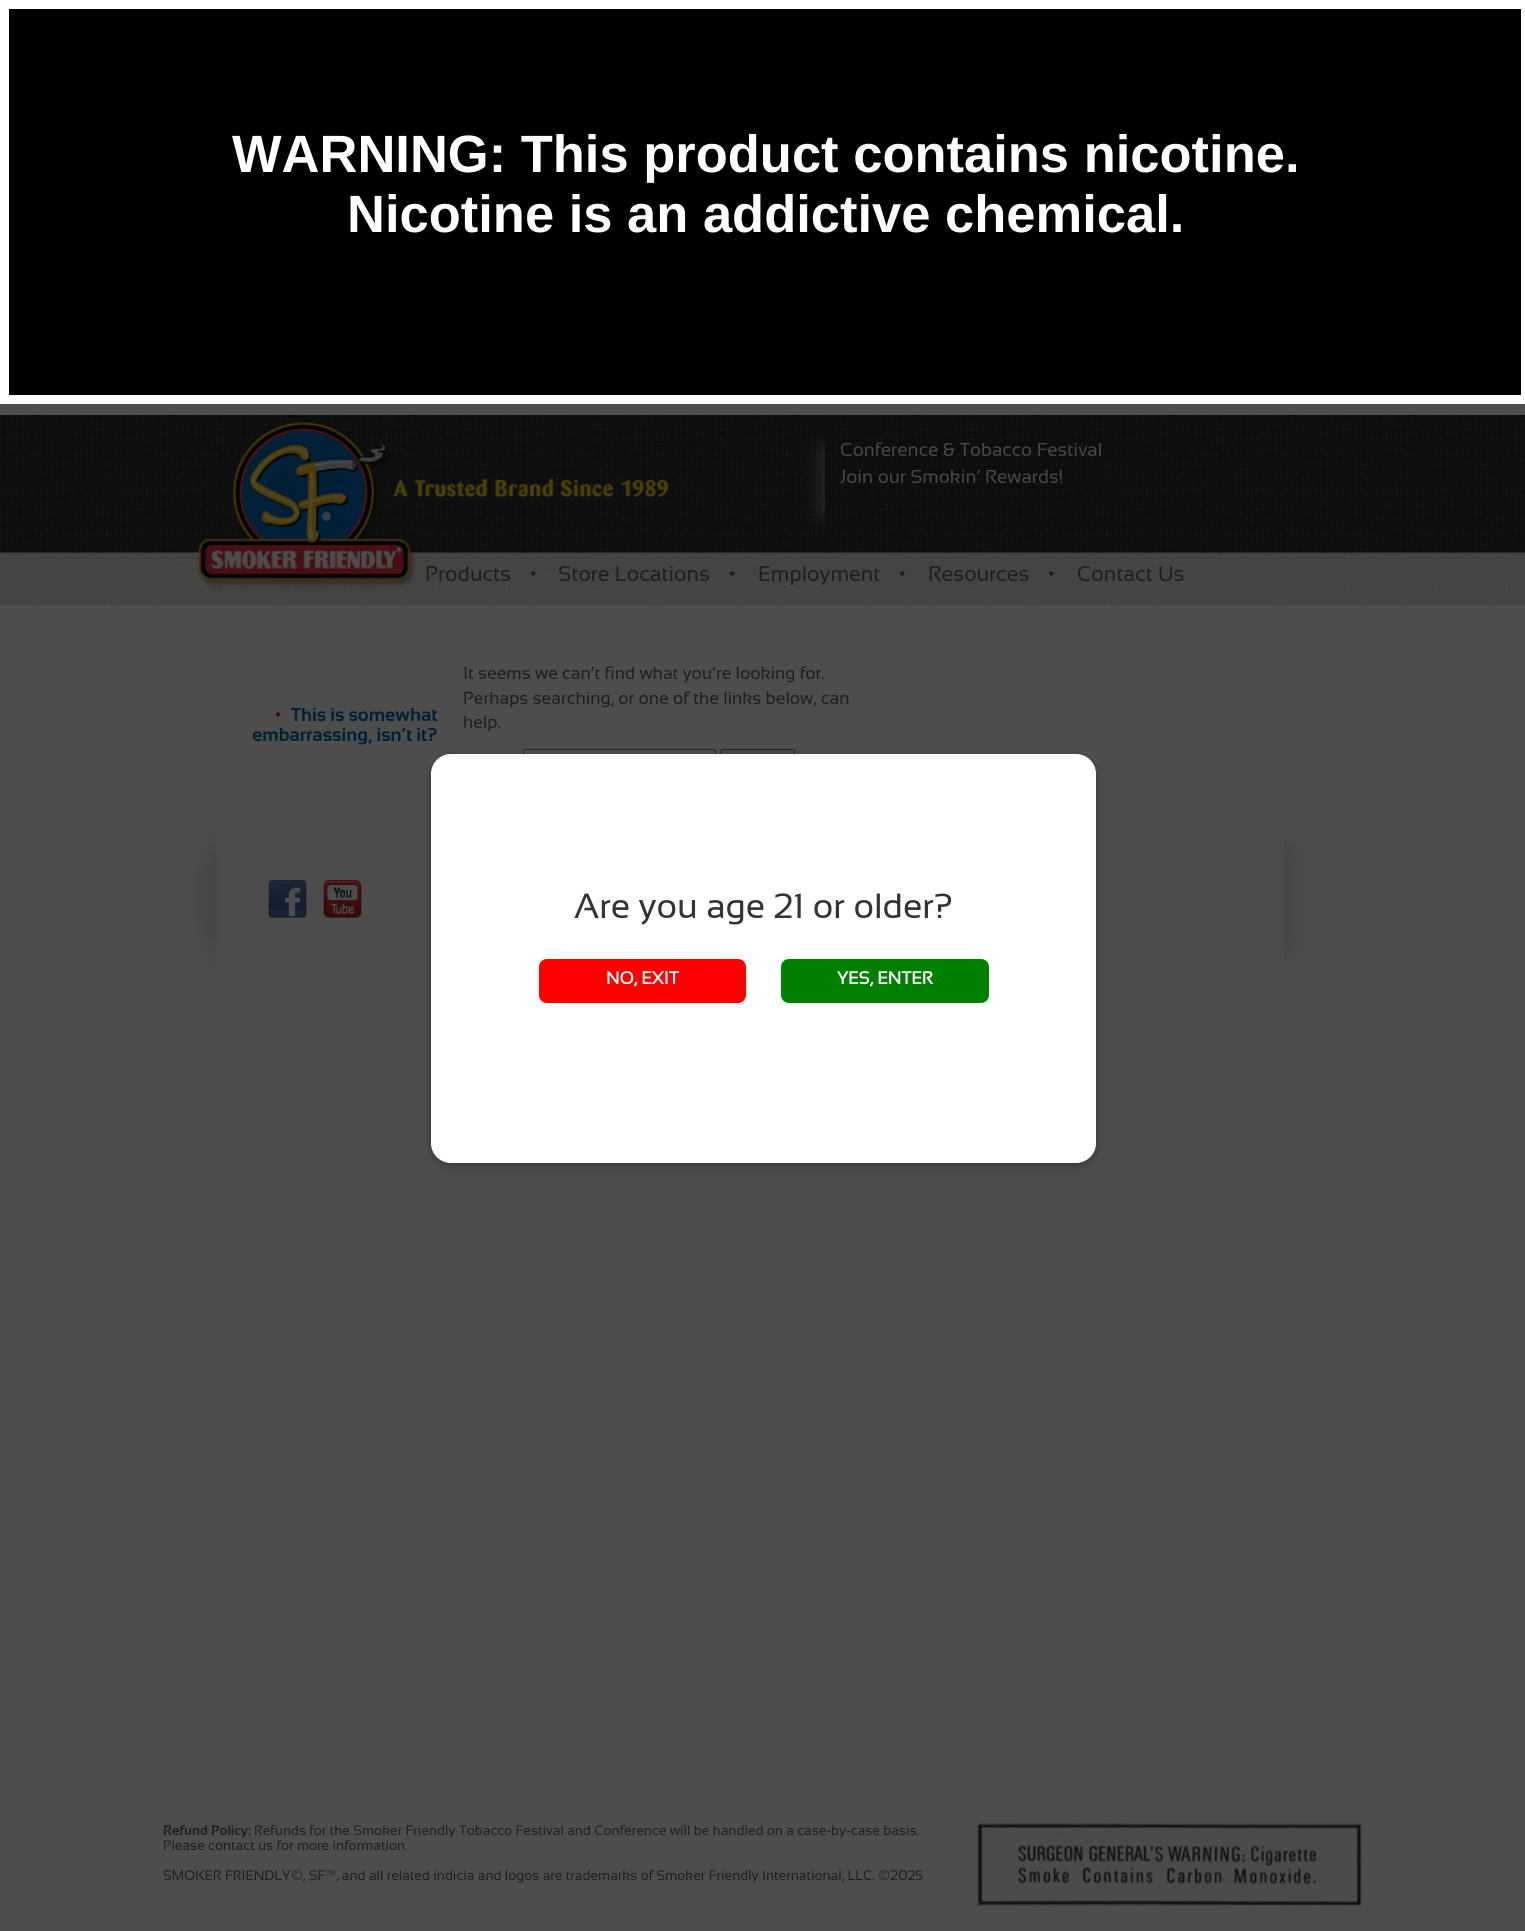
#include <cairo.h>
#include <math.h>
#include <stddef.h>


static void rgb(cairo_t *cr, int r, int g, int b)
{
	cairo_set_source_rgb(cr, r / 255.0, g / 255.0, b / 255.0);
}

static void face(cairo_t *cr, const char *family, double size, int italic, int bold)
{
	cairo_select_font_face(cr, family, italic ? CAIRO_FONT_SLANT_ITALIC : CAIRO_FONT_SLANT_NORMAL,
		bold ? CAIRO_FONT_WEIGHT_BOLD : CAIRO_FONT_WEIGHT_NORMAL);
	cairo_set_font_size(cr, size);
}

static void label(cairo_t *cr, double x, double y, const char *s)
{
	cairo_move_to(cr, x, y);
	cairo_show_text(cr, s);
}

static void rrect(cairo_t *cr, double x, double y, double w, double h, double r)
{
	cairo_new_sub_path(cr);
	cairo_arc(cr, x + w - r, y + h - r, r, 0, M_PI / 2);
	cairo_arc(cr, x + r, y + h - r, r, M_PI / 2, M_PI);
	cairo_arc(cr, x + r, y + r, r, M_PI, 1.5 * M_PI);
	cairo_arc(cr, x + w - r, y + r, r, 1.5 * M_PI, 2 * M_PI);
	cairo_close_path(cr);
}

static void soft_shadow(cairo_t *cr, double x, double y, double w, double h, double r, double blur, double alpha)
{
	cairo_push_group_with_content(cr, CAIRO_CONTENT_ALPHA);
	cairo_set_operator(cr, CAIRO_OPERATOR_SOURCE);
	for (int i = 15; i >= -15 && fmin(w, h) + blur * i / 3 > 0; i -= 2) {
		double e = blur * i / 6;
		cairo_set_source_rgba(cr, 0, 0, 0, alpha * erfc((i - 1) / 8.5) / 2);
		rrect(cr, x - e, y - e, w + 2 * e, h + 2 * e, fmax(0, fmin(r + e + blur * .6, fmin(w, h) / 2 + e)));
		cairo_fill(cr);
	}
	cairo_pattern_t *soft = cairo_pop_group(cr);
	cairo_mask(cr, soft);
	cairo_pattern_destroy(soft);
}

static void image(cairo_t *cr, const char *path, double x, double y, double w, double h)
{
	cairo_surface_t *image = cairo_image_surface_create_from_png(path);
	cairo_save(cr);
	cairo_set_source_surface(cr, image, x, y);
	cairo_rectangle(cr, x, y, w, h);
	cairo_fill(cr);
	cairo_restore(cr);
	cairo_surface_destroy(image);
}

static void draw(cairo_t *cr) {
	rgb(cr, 77, 77, 77);
	cairo_paint(cr);
	image(cr, "image0.png", 0, 415, 1525, 190);
	rgb(cr, 0, 0, 0);
	cairo_rectangle(cr, 4.5, 4.5, 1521, 395);
	cairo_fill_preserve(cr);
	rgb(cr, 255, 255, 255);
	cairo_set_line_width(cr, 9);
	cairo_stroke(cr);
	face(cr, "Liberation Sans", 52.5, 0, 1);
	label(cr, 232, 172, "WARNING: This product contains nicotine.");
	label(cr, 347, 232, "Nicotine is an addictive chemical.");
	image(cr, "image1.png", 197, 422, 472, 166);
	cairo_save(cr);
	cairo_rectangle(cr, 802, 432, 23, 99);
	cairo_clip(cr);
	rgb(cr, 50, 50, 51);
	soft_shadow(cr, 823, 450, 312, 63, 0, 10, 1);
	cairo_restore(cr);
	face(cr, "Sansation", 18.75, 0, 0);
	rgb(cr, 71, 71, 71);
	label(cr, 840, 456, "Conference & Tobacco Festival");
	label(cr, 840, 483, "Join our Smokin’ Rewards!");
	face(cr, "Sansation", 21.25, 0, 0);
	rgb(cr, 31, 31, 31);
	label(cr, 425, 581, "Products");
	label(cr, 530, 581, "•");
	label(cr, 558, 581, "Store Locations");
	label(cr, 729, 581, "•");
	label(cr, 758, 581, "Employment");
	label(cr, 899, 581, "•");
	label(cr, 928, 581, "Resources");
	label(cr, 1048, 581, "•");
	label(cr, 1077, 581, "Contact Us");
	face(cr, "Sansation", 18.75, 0, 1);
	rgb(cr, 77, 0, 0);
	label(cr, 275, 721, "•");
	rgb(cr, 0, 33, 54);
	label(cr, 291, 721, "This is somewhat");
	label(cr, 252, 741, "embarrassing, isn’t it?");
	face(cr, "Sansation", 17.5, 0, 0);
	rgb(cr, 31, 31, 31);
	label(cr, 463, 679, "It seems we can’t find what you’re looking for.");
	label(cr, 463, 704, "Perhaps searching, or one of the links below, can");
	label(cr, 463, 728, "help.");
	rrect(cr, 523.5, 749.5, 192, 25, 2);
	rgb(cr, 35, 35, 35);
	cairo_set_line_width(cr, 1);
	cairo_stroke(cr);
	rgb(cr, 72, 72, 72);
	rrect(cr, 720.5, 749.5, 74, 25, 2);
	cairo_fill_preserve(cr);
	rgb(cr, 35, 35, 35);
	cairo_stroke(cr);
	image(cr, "image2.png", 194, 831, 1113, 139);
	image(cr, "image3.png", 268, 880, 39, 38);
	image(cr, "image4.png", 323, 880, 39, 38);
	face(cr, "Sansation", 13.75, 0, 1);
	rgb(cr, 31, 31, 31);
	label(cr, 163, 1835, "Refund Policy:");
	face(cr, "Sansation", 13.75, 0, 0);
	label(cr, 254, 1835, "Refunds for the Smoker Friendly Tobacco Festival and Conference will be handled on a case-by-case basis.");
	image(cr, "image5.png", 977, 1823, 385, 84);
	label(cr, 163, 1850, "Please contact us for more information.");
	label(cr, 163, 1880, "SMOKER FRIENDLY©, SF™, and all related indicia and logos are trademarks of Smoker Friendly International, LLC. ©2025");
	rgb(cr, 0, 0, 0);
	soft_shadow(cr, 431, 758, 665, 408, 20, 4, 0.3);
	rgb(cr, 255, 255, 255);
	rrect(cr, 431.5, 754.5, 664, 408, 19.5);
	cairo_fill_preserve(cr);
	cairo_stroke(cr);
	face(cr, "Sansation", 35, 0, 0);
	rgb(cr, 51, 51, 51);
	label(cr, 574, 918, "Are you age 21 or older?");
	rgb(cr, 255, 0, 0);
	rrect(cr, 539, 959, 207, 44, 8);
	cairo_fill(cr);
	face(cr, "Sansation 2", 17.5, 0, 1);
	rgb(cr, 255, 255, 255);
	label(cr, 606, 984, "NO, EXIT");
	rgb(cr, 0, 128, 0);
	rrect(cr, 781, 959, 208, 44, 8);
	cairo_fill(cr);
	rgb(cr, 255, 255, 255);
	label(cr, 837, 984, "YES, ENTER");
}

int main(void) {
	cairo_surface_t *surface = cairo_image_surface_create(CAIRO_FORMAT_RGB24, 1525, 1931);
	cairo_t *cr = cairo_create(surface);
	cairo_font_options_t *options = cairo_font_options_create();
	cairo_font_options_set_hint_metrics(options, CAIRO_HINT_METRICS_OFF);
	cairo_font_options_set_hint_style(options, CAIRO_HINT_STYLE_NONE);
	cairo_set_font_options(cr, options);
	cairo_set_miter_limit(cr, 4);
	draw(cr);
	cairo_surface_write_to_png(surface, "render.png");
	cairo_font_options_destroy(options);
	cairo_destroy(cr);
	cairo_surface_destroy(surface);
	return 0;
}
